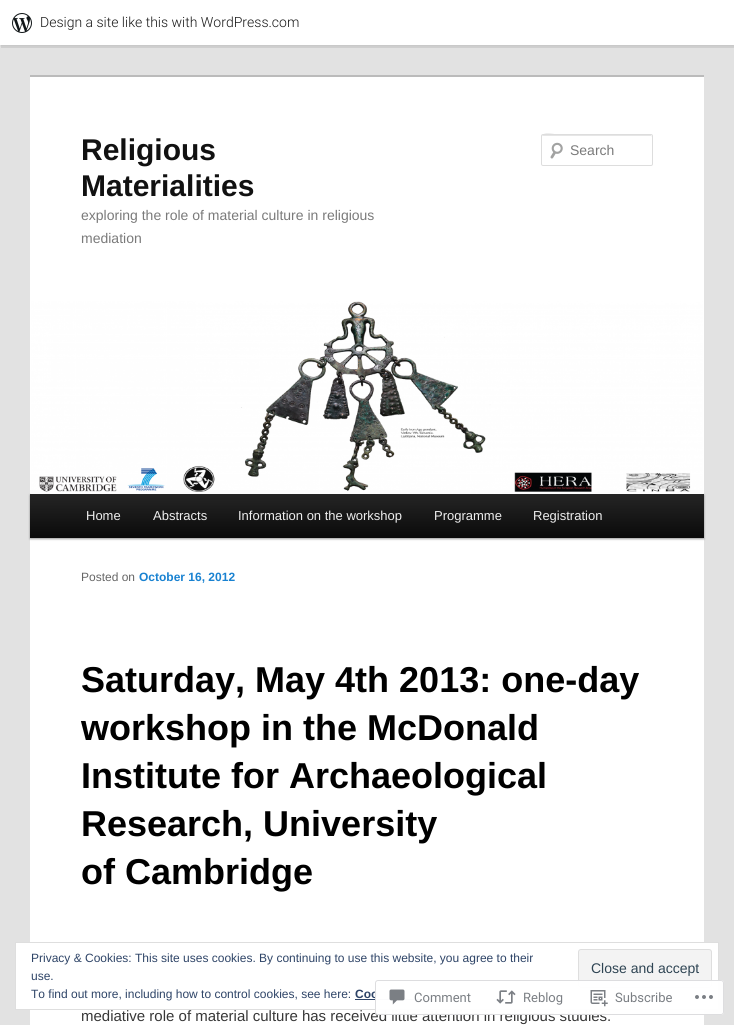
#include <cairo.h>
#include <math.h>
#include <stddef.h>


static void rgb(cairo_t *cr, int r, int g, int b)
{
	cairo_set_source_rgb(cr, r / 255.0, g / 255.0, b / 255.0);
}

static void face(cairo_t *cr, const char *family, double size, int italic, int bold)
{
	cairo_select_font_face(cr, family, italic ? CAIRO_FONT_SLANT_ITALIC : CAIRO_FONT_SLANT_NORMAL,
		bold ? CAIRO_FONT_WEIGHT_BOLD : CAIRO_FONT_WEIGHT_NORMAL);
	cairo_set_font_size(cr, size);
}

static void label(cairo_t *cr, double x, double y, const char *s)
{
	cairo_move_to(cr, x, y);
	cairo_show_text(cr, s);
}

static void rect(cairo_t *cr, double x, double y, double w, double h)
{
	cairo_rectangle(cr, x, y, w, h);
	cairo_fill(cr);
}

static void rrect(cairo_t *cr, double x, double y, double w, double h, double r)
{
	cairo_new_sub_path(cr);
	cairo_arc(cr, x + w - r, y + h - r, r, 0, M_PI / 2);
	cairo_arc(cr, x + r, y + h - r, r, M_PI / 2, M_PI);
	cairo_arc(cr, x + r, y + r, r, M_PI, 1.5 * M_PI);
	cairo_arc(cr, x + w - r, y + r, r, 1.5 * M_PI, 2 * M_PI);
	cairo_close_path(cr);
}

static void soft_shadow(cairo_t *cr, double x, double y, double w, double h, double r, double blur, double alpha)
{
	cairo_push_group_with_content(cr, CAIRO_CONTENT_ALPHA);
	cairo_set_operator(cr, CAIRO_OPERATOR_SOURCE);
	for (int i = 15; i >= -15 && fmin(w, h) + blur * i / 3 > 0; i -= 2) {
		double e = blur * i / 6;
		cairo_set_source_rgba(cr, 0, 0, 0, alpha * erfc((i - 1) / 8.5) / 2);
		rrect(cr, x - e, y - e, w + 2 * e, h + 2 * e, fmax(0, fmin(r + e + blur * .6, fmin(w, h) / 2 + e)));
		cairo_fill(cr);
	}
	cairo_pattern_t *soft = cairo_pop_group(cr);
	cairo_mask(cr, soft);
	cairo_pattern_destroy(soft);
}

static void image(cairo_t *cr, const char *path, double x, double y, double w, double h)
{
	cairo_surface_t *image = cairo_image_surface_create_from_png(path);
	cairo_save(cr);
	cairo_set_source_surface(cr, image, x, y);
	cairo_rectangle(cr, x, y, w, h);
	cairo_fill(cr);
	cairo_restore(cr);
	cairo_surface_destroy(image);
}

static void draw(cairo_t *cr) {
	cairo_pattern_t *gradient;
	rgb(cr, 226, 226, 226);
	cairo_paint(cr);
	rgb(cr, 0, 0, 0);
	soft_shadow(cr, 0, 1, 734, 45, 0, 1, 0.05);
	cairo_set_source_rgba(cr, 0, 0, 0, 0.08);
	cairo_new_path(cr);
	cairo_move_to(cr, 1, 45);
	cairo_line_to(cr, 1, 48);
	cairo_line_to(cr, 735, 48);
	cairo_line_to(cr, 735, 3);
	cairo_line_to(cr, 734, 3);
	cairo_line_to(cr, 734, 45);
	cairo_close_path(cr);
	cairo_fill(cr);
	rgb(cr, 255, 255, 255);
	rect(cr, 0, 0, 734, 45);
	image(cr, "image0.png", 12, 13, 20, 20);
	face(cr, "Roboto Light", 14, 0, 0);
	rgb(cr, 23, 23, 23);
	label(cr, 40, 27, "Design a site like this with WordPress.com");
	rgb(cr, 255, 255, 255);
	rect(cr, 30, 77, 674, 948);
	rgb(cr, 187, 187, 187);
	rect(cr, 30, 75, 674, 2);
	face(cr, "Liberation Sans", 30, 0, 1);
	rgb(cr, 17, 17, 17);
	label(cr, 81, 160, "Religious");
	label(cr, 81, 196, "Materialities");
	face(cr, "Liberation Sans", 14, 0, 0);
	rgb(cr, 122, 122, 122);
	label(cr, 81, 220, "exploring the role of material culture in religious");
	label(cr, 81, 243, "mediation");
	image(cr, "image1.png", 550, 142, 13, 17);
	rgb(cr, 230, 230, 230);
	cairo_new_path(cr);
	cairo_move_to(cr, 543, 136);
	cairo_line_to(cr, 652, 136);
	cairo_line_to(cr, 652, 137);
	cairo_line_to(cr, 651, 135);
	cairo_line_to(cr, 561, 135);
	cairo_curve_to(cr, 557, 135, 542, 130, 542, 137);
	cairo_curve_to(cr, 542, 136, 542, 136, 543, 136);
	cairo_close_path(cr);
	cairo_fill(cr);
	rrect(cr, 541.5, 134.5, 111, 31, 1.5);
	rgb(cr, 221, 221, 221);
	cairo_set_line_width(cr, 1);
	cairo_stroke(cr);
	rgb(cr, 122, 122, 122);
	label(cr, 570, 155, "Search");
	rgb(cr, 0, 0, 0);
	soft_shadow(cr, 30, 495, 674, 44, 0, 1, 0.4);
	image(cr, "image2.png", 31, 301, 672, 193);
	gradient = cairo_pattern_create_linear(367, 494, 367, 538);
	cairo_pattern_add_color_stop_rgba(gradient, 0, 0.145, 0.145, 0.145, 1);
	cairo_pattern_add_color_stop_rgba(gradient, 1, 0.039, 0.039, 0.039, 1);
	cairo_set_source(cr, gradient);
	cairo_pattern_destroy(gradient);
	rect(cr, 30, 494, 674, 44);
	face(cr, "Liberation Sans", 13, 0, 0);
	rgb(cr, 238, 238, 238);
	label(cr, 86, 520, "Home");
	label(cr, 153, 520, "Abstracts");
	label(cr, 238, 520, "Information on the workshop");
	label(cr, 434, 520, "Programme");
	label(cr, 533, 520, "Registration");
	face(cr, "Liberation Sans", 12, 0, 0);
	rgb(cr, 102, 102, 102);
	label(cr, 81, 581, "Posted on");
	face(cr, "Liberation Sans", 12, 0, 1);
	rgb(cr, 25, 130, 209);
	label(cr, 139, 581, "October 16, 2012");
	face(cr, "Liberation Sans", 36, 0, 1);
	rgb(cr, 0, 0, 0);
	label(cr, 81, 692, "Saturday, May 4th 2013: one-day");
	label(cr, 81, 740, "workshop in the McDonald");
	label(cr, 81, 788, "Institute for Archaeological");
	label(cr, 81, 836, "Research, University");
	label(cr, 81, 884, "of Cambridge");
	face(cr, "Liberation Sans", 15, 0, 0);
	rgb(cr, 55, 55, 55);
	label(cr, 81, 1021, "mediative role of material culture has received little attention in religious studies.");
	rgb(cr, 255, 255, 255);
	cairo_rectangle(cr, 15.5, 942.5, 703, 67);
	cairo_fill_preserve(cr);
	rgb(cr, 222, 222, 222);
	cairo_stroke(cr);
	face(cr, "Liberation Sans", 12, 0, 0);
	rgb(cr, 46, 68, 103);
	label(cr, 31, 962, "Privacy & Cookies: This site uses cookies. By continuing to use this website, you agree to their");
	rgb(cr, 243, 243, 243);
	rrect(cr, 578.5, 949.5, 133, 38, 2.5);
	cairo_fill_preserve(cr);
	rgb(cr, 222, 222, 222);
	cairo_stroke(cr);
	face(cr, "Liberation Sans", 14, 0, 0);
	rgb(cr, 46, 68, 83);
	label(cr, 591, 973, "Close and accept");
	face(cr, "Liberation Sans", 12, 0, 0);
	rgb(cr, 46, 68, 103);
	label(cr, 31, 980, "use.");
	label(cr, 31, 998, "To find out more, including how to control cookies, see here:");
	face(cr, "Liberation Sans", 12, 0, 1);
	label(cr, 355, 998, "Coo");
	rect(cr, 355, 999, 78, 1);
	cairo_set_source_rgba(cr, 1, 1, 1, 0.98);
	rrect(cr, 375, 980, 349, 35, 3);
	cairo_fill(cr);
	rrect(cr, 375.5, 980.5, 348, 34, 2.5);
	cairo_set_source_rgba(cr, 0.863, 0.863, 0.871, 0.98);
	cairo_stroke(cr);
	image(cr, "image3.png", 389, 989, 16, 16);
	face(cr, "Roboto", 13, 0, 0);
	rgb(cr, 123, 127, 132);
	label(cr, 414, 1002, "Comment");
	image(cr, "image4.png", 496, 990, 20, 14);
	label(cr, 523, 1002, "Reblog");
	image(cr, "image5.png", 590, 990, 18, 17);
	label(cr, 615, 1002, "Subscribe");
	image(cr, "image6.png", 695, 995, 18, 4);
}

int main(void) {
	cairo_surface_t *surface = cairo_image_surface_create(CAIRO_FORMAT_RGB24, 734, 1025);
	cairo_t *cr = cairo_create(surface);
	cairo_font_options_t *options = cairo_font_options_create();
	cairo_font_options_set_hint_metrics(options, CAIRO_HINT_METRICS_OFF);
	cairo_font_options_set_hint_style(options, CAIRO_HINT_STYLE_NONE);
	cairo_set_font_options(cr, options);
	cairo_set_miter_limit(cr, 4);
	draw(cr);
	cairo_surface_write_to_png(surface, "render.png");
	cairo_font_options_destroy(options);
	cairo_destroy(cr);
	cairo_surface_destroy(surface);
	return 0;
}
